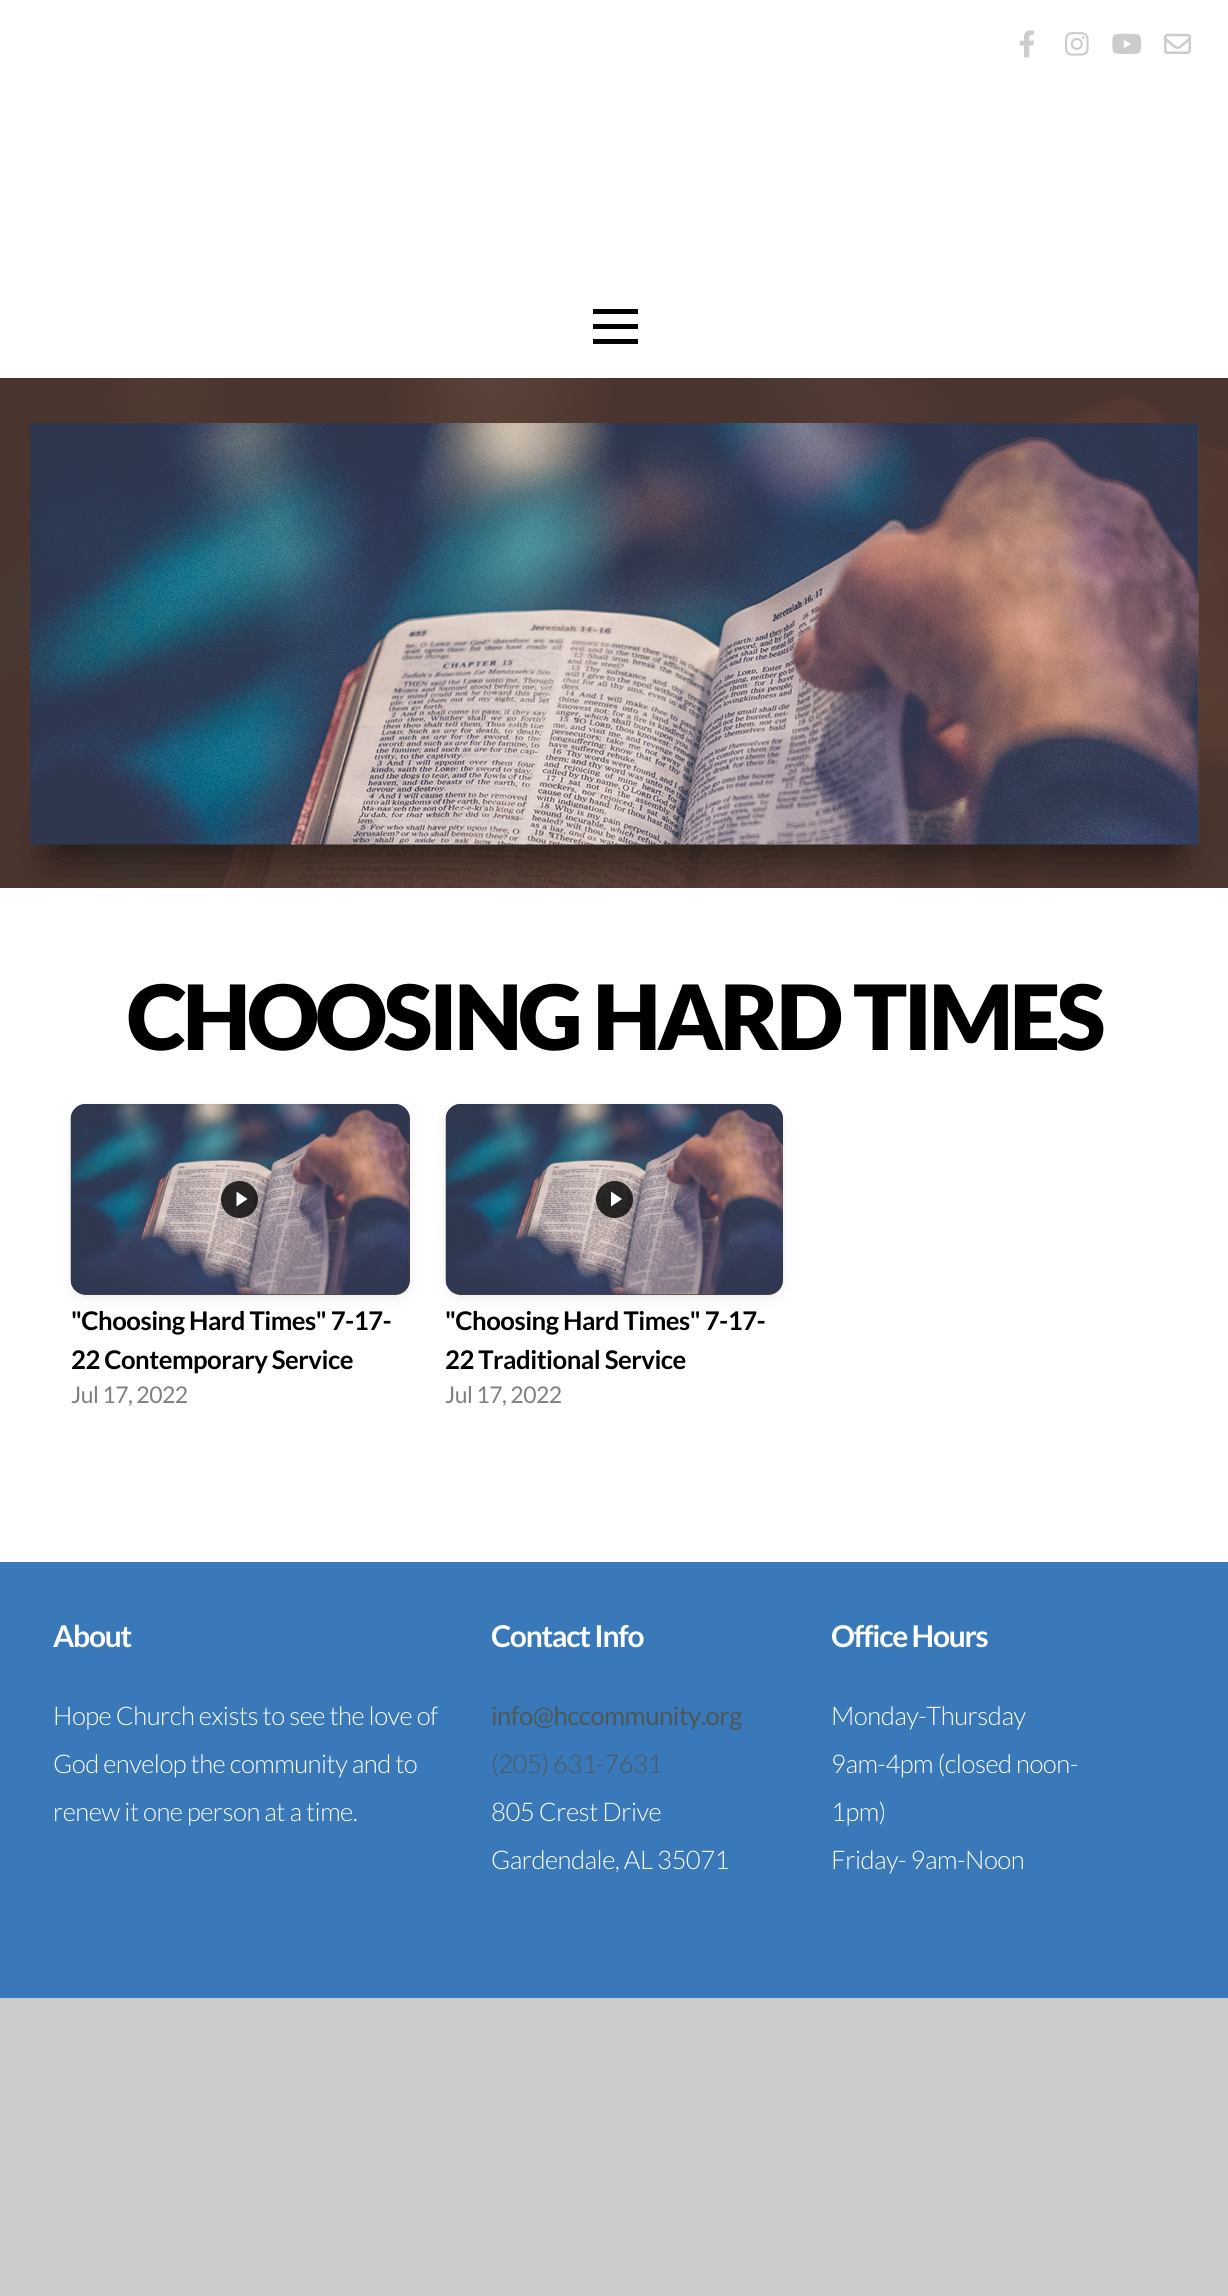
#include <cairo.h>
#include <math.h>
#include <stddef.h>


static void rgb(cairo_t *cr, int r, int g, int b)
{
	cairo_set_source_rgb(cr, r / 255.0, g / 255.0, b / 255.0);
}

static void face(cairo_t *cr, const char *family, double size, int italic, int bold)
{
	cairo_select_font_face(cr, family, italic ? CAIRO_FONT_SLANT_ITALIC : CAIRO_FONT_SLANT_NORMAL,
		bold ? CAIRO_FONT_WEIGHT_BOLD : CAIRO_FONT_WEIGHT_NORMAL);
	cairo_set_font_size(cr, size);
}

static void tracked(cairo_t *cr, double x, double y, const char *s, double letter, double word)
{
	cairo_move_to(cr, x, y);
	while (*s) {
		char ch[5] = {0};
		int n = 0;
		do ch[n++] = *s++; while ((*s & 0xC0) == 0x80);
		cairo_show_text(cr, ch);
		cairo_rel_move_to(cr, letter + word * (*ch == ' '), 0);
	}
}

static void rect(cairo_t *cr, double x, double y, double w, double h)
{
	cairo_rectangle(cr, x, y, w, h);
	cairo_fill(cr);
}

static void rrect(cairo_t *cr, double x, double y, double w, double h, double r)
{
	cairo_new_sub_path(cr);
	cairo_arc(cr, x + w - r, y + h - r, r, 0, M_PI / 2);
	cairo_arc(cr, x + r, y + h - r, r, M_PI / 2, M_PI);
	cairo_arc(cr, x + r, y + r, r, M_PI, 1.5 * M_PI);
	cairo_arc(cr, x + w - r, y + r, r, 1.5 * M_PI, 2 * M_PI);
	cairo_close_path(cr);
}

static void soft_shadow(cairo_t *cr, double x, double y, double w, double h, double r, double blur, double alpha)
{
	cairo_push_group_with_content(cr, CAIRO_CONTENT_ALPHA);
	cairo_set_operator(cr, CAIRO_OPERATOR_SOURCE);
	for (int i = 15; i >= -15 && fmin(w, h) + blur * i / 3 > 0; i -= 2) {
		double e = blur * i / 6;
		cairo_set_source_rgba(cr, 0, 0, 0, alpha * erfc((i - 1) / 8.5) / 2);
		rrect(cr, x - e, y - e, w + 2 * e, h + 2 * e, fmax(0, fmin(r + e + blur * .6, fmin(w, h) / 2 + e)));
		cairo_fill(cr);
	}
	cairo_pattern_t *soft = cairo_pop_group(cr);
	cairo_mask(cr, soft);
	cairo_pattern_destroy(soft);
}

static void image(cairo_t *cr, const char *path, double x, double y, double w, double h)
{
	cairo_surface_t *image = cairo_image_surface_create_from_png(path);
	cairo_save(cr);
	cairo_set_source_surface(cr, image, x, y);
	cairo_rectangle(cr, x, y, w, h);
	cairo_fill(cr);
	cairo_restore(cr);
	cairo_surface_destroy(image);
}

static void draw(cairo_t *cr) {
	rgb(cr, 204, 204, 204);
	cairo_paint(cr);
	rgb(cr, 255, 255, 255);
	rect(cr, 0, 0, 1228, 378);
	image(cr, "image0.png", 1019, 30, 16, 28);
	image(cr, "image1.png", 1065, 32, 24, 24);
	image(cr, "image2.png", 1112, 33, 30, 21);
	image(cr, "image3.png", 1164, 33, 27, 21);
	rgb(cr, 0, 0, 0);
	rect(cr, 593, 309, 45, 5);
	rect(cr, 593, 324, 45, 5);
	rect(cr, 593, 339, 45, 5);
	image(cr, "image4.png", 0, 378, 1228, 510);
	rgb(cr, 0, 0, 0);
	soft_shadow(cr, 51, 828, 1127, 33, 16.5, 19, 0.5);
	image(cr, "image5.png", 30, 423, 1169, 422);
	rgb(cr, 255, 255, 255);
	rect(cr, 0, 888, 1228, 674);
	face(cr, "Lato Black", 90, 0, 0);
	rgb(cr, 0, 0, 0);
	tracked(cr, 127, 1050, "CHOOSING HARD TIMES", -3.6, 0);
	rgb(cr, 0, 0, 0);
	soft_shadow(cr, 71, 1106, 339, 190, 15, 1.5, 0.04);
	soft_shadow(cr, 71, 1109, 339, 190, 15, 7.5, 0.06);
	rgb(cr, 72, 70, 66);
	rrect(cr, 71, 1104, 339, 191, 15);
	cairo_fill(cr);
	image(cr, "image6.png", 70, 1104, 340, 191);
	cairo_set_source_rgba(cr, 0, 0, 0, 0.8);
	cairo_arc(cr, 239.5, 1199.5, 18.5, 0, 2 * M_PI);
	cairo_fill(cr);
	rgb(cr, 255, 255, 255);
	cairo_new_path(cr);
	cairo_move_to(cr, 236.5, 1206.5);
	cairo_line_to(cr, 236.5, 1191.5);
	cairo_line_to(cr, 247.5, 1199);
	cairo_close_path(cr);
	cairo_fill(cr);
	face(cr, "Lato", 25.7, 0, 1);
	rgb(cr, 0, 0, 0);
	tracked(cr, 71, 1330, "\"Choosing Hard Times\" 7-17-", -0.5, 0);
	tracked(cr, 71, 1369, "22 Contemporary Service", -0.5, 0);
	face(cr, "Lato", 23, 0, 0);
	rgb(cr, 128, 128, 128);
	tracked(cr, 71, 1403, "Jul 17, 2022", -0.5, 0);
	rgb(cr, 0, 0, 0);
	soft_shadow(cr, 446, 1106, 337, 190, 15, 1.5, 0.04);
	soft_shadow(cr, 446, 1109, 337, 190, 15, 7.5, 0.06);
	rgb(cr, 72, 70, 66);
	rrect(cr, 446, 1104, 337, 191, 15);
	cairo_fill(cr);
	image(cr, "image7.png", 445, 1104, 338, 191);
	cairo_set_source_rgba(cr, 0, 0, 0, 0.8);
	cairo_arc(cr, 614.5, 1199.5, 18.5, 0, 2 * M_PI);
	cairo_fill(cr);
	rgb(cr, 255, 255, 255);
	cairo_new_path(cr);
	cairo_move_to(cr, 611, 1206.5);
	cairo_line_to(cr, 611, 1191.5);
	cairo_line_to(cr, 622, 1199);
	cairo_close_path(cr);
	cairo_fill(cr);
	face(cr, "Lato", 25.7, 0, 1);
	rgb(cr, 0, 0, 0);
	tracked(cr, 445, 1330, "\"Choosing Hard Times\" 7-17-", -0.5, 0);
	tracked(cr, 445, 1369, "22 Traditional Service", -0.5, 0);
	face(cr, "Lato", 23, 0, 0);
	rgb(cr, 128, 128, 128);
	tracked(cr, 445, 1403, "Jul 17, 2022", -0.5, 0);
	rgb(cr, 57, 121, 185);
	rect(cr, 0, 1562, 1228, 436);
	face(cr, "Lato", 30, 0, 1);
	rgb(cr, 255, 255, 255);
	tracked(cr, 53, 1647, "About", -1.25, 0);
	face(cr, "Lato Light", 25.7, 0, 0);
	tracked(cr, 53, 1725, "Hope Church exists to see the love of", -0.5, 0);
	tracked(cr, 53, 1773, "God envelop the community and to", -0.5, 0);
	tracked(cr, 53, 1821, "renew it one person at a time.", -0.5, 0);
	face(cr, "Lato", 30, 0, 1);
	tracked(cr, 491, 1647, "Contact Info", -1.25, 0);
	tracked(cr, 831, 1647, "Office Hours", -1.25, 0);
	face(cr, "Lato", 25.7, 0, 0);
	rgb(cr, 76, 87, 88);
	tracked(cr, 491, 1725, "info@hccommunity.org", -0.5, 0);
	face(cr, "Lato Light", 25.7, 0, 0);
	tracked(cr, 491, 1773, "(205) 631-7631", -0.5, 0);
	rgb(cr, 255, 255, 255);
	tracked(cr, 491, 1821, "805 Crest Drive", -0.5, 0);
	tracked(cr, 491, 1869, "Gardendale, AL 35071", -0.5, 0);
	tracked(cr, 831, 1725, "Monday-Thursday", -0.5, 0);
	tracked(cr, 831, 1773, "9am-4pm (closed noon-", -0.5, 0);
	tracked(cr, 831, 1821, "1pm)", -0.5, 0);
	tracked(cr, 831, 1869, "Friday- 9am-Noon", -0.5, 0);
}

int main(void) {
	cairo_surface_t *surface = cairo_image_surface_create(CAIRO_FORMAT_RGB24, 1228, 2296);
	cairo_t *cr = cairo_create(surface);
	cairo_font_options_t *options = cairo_font_options_create();
	cairo_font_options_set_hint_metrics(options, CAIRO_HINT_METRICS_OFF);
	cairo_font_options_set_hint_style(options, CAIRO_HINT_STYLE_NONE);
	cairo_set_font_options(cr, options);
	cairo_set_miter_limit(cr, 4);
	draw(cr);
	cairo_surface_write_to_png(surface, "render.png");
	cairo_font_options_destroy(options);
	cairo_destroy(cr);
	cairo_surface_destroy(surface);
	return 0;
}
